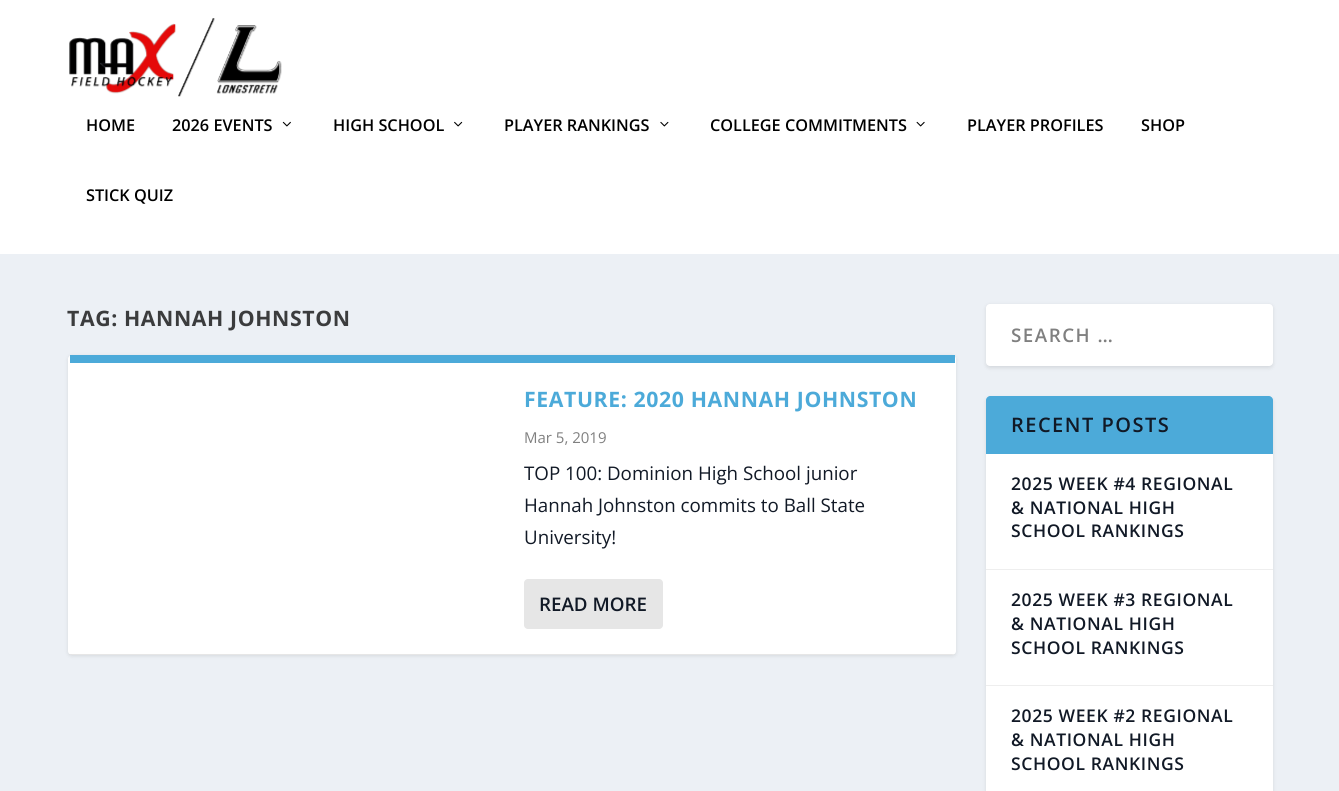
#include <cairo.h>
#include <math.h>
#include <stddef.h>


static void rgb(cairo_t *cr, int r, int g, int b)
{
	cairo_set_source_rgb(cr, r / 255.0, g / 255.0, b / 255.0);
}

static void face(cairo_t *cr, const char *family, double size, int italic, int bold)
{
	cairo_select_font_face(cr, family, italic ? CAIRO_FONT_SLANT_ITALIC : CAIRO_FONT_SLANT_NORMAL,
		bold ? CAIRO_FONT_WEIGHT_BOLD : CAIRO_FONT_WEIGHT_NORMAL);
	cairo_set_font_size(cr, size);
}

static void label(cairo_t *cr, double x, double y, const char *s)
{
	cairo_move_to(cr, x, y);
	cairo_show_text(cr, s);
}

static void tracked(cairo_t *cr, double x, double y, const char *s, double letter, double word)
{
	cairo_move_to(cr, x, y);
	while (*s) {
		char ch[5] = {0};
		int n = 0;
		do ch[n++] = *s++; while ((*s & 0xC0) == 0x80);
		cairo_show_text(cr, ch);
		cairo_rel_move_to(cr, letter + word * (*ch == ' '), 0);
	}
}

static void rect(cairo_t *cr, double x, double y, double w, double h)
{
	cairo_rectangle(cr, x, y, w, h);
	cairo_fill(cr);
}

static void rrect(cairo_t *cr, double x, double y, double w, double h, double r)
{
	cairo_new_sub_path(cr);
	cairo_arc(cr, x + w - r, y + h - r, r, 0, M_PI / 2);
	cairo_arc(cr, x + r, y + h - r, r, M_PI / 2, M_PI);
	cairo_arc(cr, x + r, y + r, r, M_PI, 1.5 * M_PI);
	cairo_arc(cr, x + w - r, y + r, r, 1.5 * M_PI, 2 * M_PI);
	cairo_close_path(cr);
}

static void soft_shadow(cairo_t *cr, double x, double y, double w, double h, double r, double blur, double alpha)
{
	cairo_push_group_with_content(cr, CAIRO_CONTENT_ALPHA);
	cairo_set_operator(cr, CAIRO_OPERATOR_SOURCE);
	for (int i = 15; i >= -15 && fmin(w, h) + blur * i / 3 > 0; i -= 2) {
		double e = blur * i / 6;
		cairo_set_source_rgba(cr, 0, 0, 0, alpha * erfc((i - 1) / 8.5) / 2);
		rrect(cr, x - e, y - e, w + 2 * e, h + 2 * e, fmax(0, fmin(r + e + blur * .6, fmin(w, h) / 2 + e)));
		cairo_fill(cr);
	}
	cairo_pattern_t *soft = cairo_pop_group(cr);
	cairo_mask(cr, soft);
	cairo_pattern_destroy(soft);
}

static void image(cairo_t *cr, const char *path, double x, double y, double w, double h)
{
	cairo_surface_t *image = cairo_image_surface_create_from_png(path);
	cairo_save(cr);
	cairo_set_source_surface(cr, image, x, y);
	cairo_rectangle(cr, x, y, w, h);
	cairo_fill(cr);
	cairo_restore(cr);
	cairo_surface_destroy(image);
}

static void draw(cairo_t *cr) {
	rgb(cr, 236, 240, 245);
	cairo_paint(cr);
	rgb(cr, 255, 255, 255);
	rect(cr, 0, 0, 1339, 254);
	image(cr, "image0.png", 69, 18, 213, 79);
	face(cr, "Open Sans SemiBold", 16.25, 0, 0);
	rgb(cr, 0, 0, 0);
	label(cr, 86, 131, "HOME");
	label(cr, 172, 131, "2026 EVENTS");
	image(cr, "image1.png", 282, 121, 9, 6);
	label(cr, 333, 131, "HIGH SCHOOL");
	image(cr, "image2.png", 454, 121, 9, 6);
	label(cr, 504, 131, "PLAYER RANKINGS");
	image(cr, "image3.png", 660, 121, 9, 6);
	label(cr, 710, 131, "COLLEGE COMMITMENTS");
	image(cr, "image4.png", 916, 121, 9, 6);
	label(cr, 967, 131, "PLAYER PROFILES");
	label(cr, 1141, 131, "SHOP");
	label(cr, 86, 201, "STICK QUIZ");
	face(cr, "Open Sans", 21.25, 0, 1);
	rgb(cr, 59, 60, 61);
	tracked(cr, 67, 326, "TAG: HANNAH JOHNSTON", 0.6, 0);
	rgb(cr, 0, 0, 0);
	soft_shadow(cr, 68, 356, 888, 300, 4, 2, 0.1);
	rgb(cr, 255, 255, 255);
	rrect(cr, 68, 355, 888, 300, 4);
	cairo_fill(cr);
	rgb(cr, 76, 170, 217);
	rect(cr, 70, 355, 885, 8);
	cairo_set_source_rgba(cr, 0, 0, 0, 0.1);
	cairo_new_path(cr);
	cairo_move_to(cr, 71, 655);
	cairo_line_to(cr, 952, 655);
	cairo_line_to(cr, 955, 654);
	cairo_line_to(cr, 69, 654);
	cairo_close_path(cr);
	cairo_fill(cr);
	rgb(cr, 76, 170, 217);
	tracked(cr, 524, 407, "FEATURE: 2020 HANNAH JOHNSTON", 0.6, 0);
	face(cr, "Open Sans", 15, 0, 0);
	rgb(cr, 128, 128, 128);
	label(cr, 524, 443, "Mar 5, 2019");
	face(cr, "Open Sans", 18.75, 0, 0);
	rgb(cr, 17, 25, 38);
	label(cr, 524, 480, "TOP 100: Dominion High School junior");
	label(cr, 524, 512, "Hannah Johnston commits to Ball State");
	label(cr, 524, 544, "University!");
	rgb(cr, 230, 230, 230);
	rrect(cr, 524, 579, 139, 50, 4);
	cairo_fill(cr);
	face(cr, "Open Sans SemiBold", 18.75, 0, 0);
	rgb(cr, 17, 25, 38);
	label(cr, 539, 611, "READ MORE");
	rgb(cr, 0, 0, 0);
	soft_shadow(cr, 986, 305, 287, 63, 4, 2, 0.1);
	rgb(cr, 255, 255, 255);
	rrect(cr, 986, 304, 287, 62, 4);
	cairo_fill(cr);
	rgb(cr, 128, 128, 128);
	tracked(cr, 1011, 342, "SEARCH …", 1.5, 0);
	rgb(cr, 0, 0, 0);
	soft_shadow(cr, 986, 398, 287, 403, 4, 2, 0.1);
	rgb(cr, 255, 255, 255);
	rrect(cr, 986, 396, 287, 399, 4);
	cairo_fill(cr);
	rgb(cr, 76, 170, 217);
	cairo_new_path(cr);
	cairo_move_to(cr, 990, 396);
	cairo_line_to(cr, 1269, 396);
	cairo_curve_to(cr, 1271, 396, 1273, 398, 1273, 400);
	cairo_line_to(cr, 1273, 454);
	cairo_line_to(cr, 986, 454);
	cairo_line_to(cr, 986, 400);
	cairo_curve_to(cr, 986, 398, 988, 396, 990, 396);
	cairo_close_path(cr);
	cairo_fill(cr);
	face(cr, "Open Sans SemiBold", 20, 0, 0);
	rgb(cr, 17, 25, 38);
	tracked(cr, 1011, 432, "RECENT POSTS", 1.5, 0);
	rgb(cr, 238, 238, 238);
	rect(cr, 986, 569, 287, 1);
	face(cr, "Open Sans SemiBold", 17.5, 0, 0);
	rgb(cr, 17, 25, 38);
	tracked(cr, 1011, 490, "2025 WEEK #4 REGIONAL", 0.6, 0);
	tracked(cr, 1011, 514, "& NATIONAL HIGH", 0.6, 0);
	tracked(cr, 1011, 537, "SCHOOL RANKINGS", 0.6, 0);
	rgb(cr, 238, 238, 238);
	rect(cr, 986, 685, 287, 1);
	rgb(cr, 17, 25, 38);
	tracked(cr, 1011, 606, "2025 WEEK #3 REGIONAL", 0.6, 0);
	tracked(cr, 1011, 630, "& NATIONAL HIGH", 0.6, 0);
	tracked(cr, 1011, 654, "SCHOOL RANKINGS", 0.6, 0);
	tracked(cr, 1011, 722, "2025 WEEK #2 REGIONAL", 0.6, 0);
	tracked(cr, 1011, 746, "& NATIONAL HIGH", 0.6, 0);
	tracked(cr, 1011, 770, "SCHOOL RANKINGS", 0.6, 0);
}

int main(void) {
	cairo_surface_t *surface = cairo_image_surface_create(CAIRO_FORMAT_RGB24, 1339, 791);
	cairo_t *cr = cairo_create(surface);
	cairo_font_options_t *options = cairo_font_options_create();
	cairo_font_options_set_hint_metrics(options, CAIRO_HINT_METRICS_OFF);
	cairo_font_options_set_hint_style(options, CAIRO_HINT_STYLE_NONE);
	cairo_set_font_options(cr, options);
	cairo_set_miter_limit(cr, 4);
	draw(cr);
	cairo_surface_write_to_png(surface, "render.png");
	cairo_font_options_destroy(options);
	cairo_destroy(cr);
	cairo_surface_destroy(surface);
	return 0;
}
